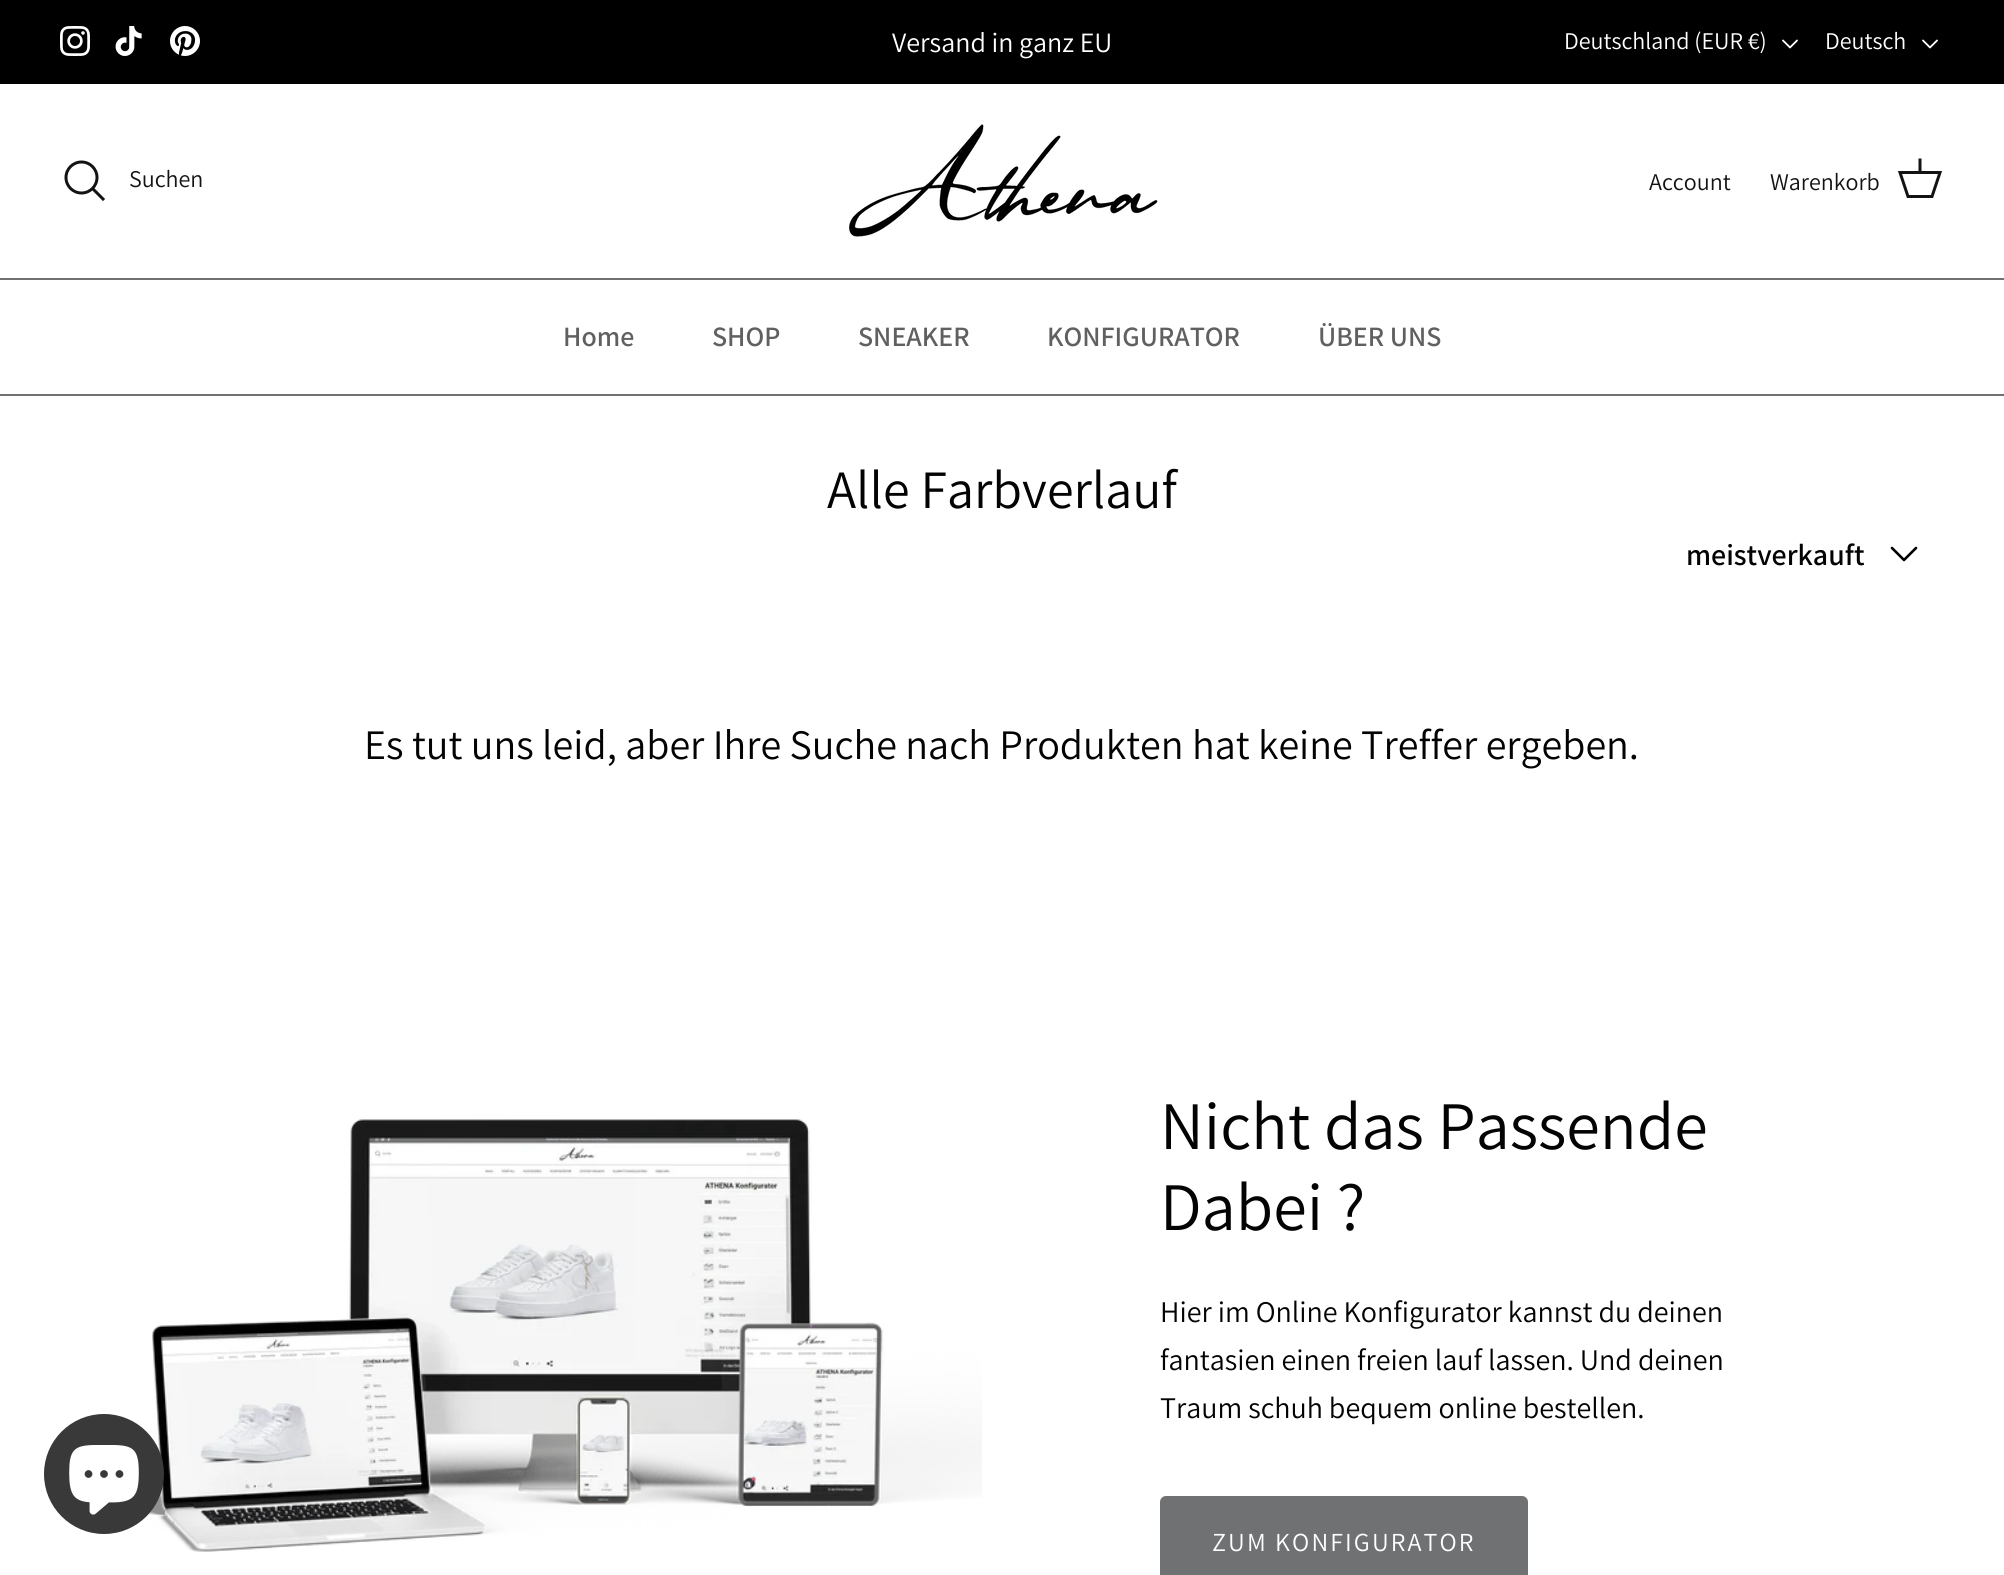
#include <cairo.h>
#include <math.h>
#include <stddef.h>


static void rgb(cairo_t *cr, int r, int g, int b)
{
	cairo_set_source_rgb(cr, r / 255.0, g / 255.0, b / 255.0);
}

static void face(cairo_t *cr, const char *family, double size, int italic, int bold)
{
	cairo_select_font_face(cr, family, italic ? CAIRO_FONT_SLANT_ITALIC : CAIRO_FONT_SLANT_NORMAL,
		bold ? CAIRO_FONT_WEIGHT_BOLD : CAIRO_FONT_WEIGHT_NORMAL);
	cairo_set_font_size(cr, size);
}

static void label(cairo_t *cr, double x, double y, const char *s)
{
	cairo_move_to(cr, x, y);
	cairo_show_text(cr, s);
}

static void tracked(cairo_t *cr, double x, double y, const char *s, double letter, double word)
{
	cairo_move_to(cr, x, y);
	while (*s) {
		char ch[5] = {0};
		int n = 0;
		do ch[n++] = *s++; while ((*s & 0xC0) == 0x80);
		cairo_show_text(cr, ch);
		cairo_rel_move_to(cr, letter + word * (*ch == ' '), 0);
	}
}

static void rect(cairo_t *cr, double x, double y, double w, double h)
{
	cairo_rectangle(cr, x, y, w, h);
	cairo_fill(cr);
}

static void rrect(cairo_t *cr, double x, double y, double w, double h, double r)
{
	cairo_new_sub_path(cr);
	cairo_arc(cr, x + w - r, y + h - r, r, 0, M_PI / 2);
	cairo_arc(cr, x + r, y + h - r, r, M_PI / 2, M_PI);
	cairo_arc(cr, x + r, y + r, r, M_PI, 1.5 * M_PI);
	cairo_arc(cr, x + w - r, y + r, r, 1.5 * M_PI, 2 * M_PI);
	cairo_close_path(cr);
}

static void image(cairo_t *cr, const char *path, double x, double y, double w, double h)
{
	cairo_surface_t *image = cairo_image_surface_create_from_png(path);
	cairo_save(cr);
	cairo_set_source_surface(cr, image, x, y);
	cairo_rectangle(cr, x, y, w, h);
	cairo_fill(cr);
	cairo_restore(cr);
	cairo_surface_destroy(image);
}

static void draw(cairo_t *cr) {
	rgb(cr, 255, 255, 255);
	cairo_paint(cr);
	rgb(cr, 0, 0, 0);
	rect(cr, 0, 0, 2004, 84);
	image(cr, "image0.png", 60, 26, 30, 30);
	image(cr, "image1.png", 115, 26, 27, 30);
	image(cr, "image2.png", 170, 26, 30, 30);
	face(cr, "Assistant", 28, 0, 0);
	rgb(cr, 255, 255, 255);
	label(cr, 892, 52, "Versand in ganz EU");
	face(cr, "Assistant", 24, 0, 0);
	label(cr, 1564, 49, "Deutschland (EUR €)");
	cairo_new_path(cr);
	cairo_move_to(cr, 1783, 40.5);
	cairo_line_to(cr, 1790, 47.5);
	cairo_line_to(cr, 1797, 40.5);
	cairo_set_line_width(cr, 1.8);
	cairo_set_line_cap(cr, CAIRO_LINE_CAP_ROUND);
	cairo_set_line_join(cr, CAIRO_LINE_JOIN_ROUND);
	cairo_stroke(cr);
	label(cr, 1825, 49, "Deutsch");
	cairo_new_path(cr);
	cairo_move_to(cr, 1923, 40.5);
	cairo_line_to(cr, 1930, 47.5);
	cairo_line_to(cr, 1937, 40.5);
	cairo_stroke(cr);
	rgb(cr, 112, 113, 115);
	rect(cr, 0, 278, 2004, 2);
	cairo_arc(cr, 81.5, 177.5, 15.5, 0, 2 * M_PI);
	rgb(cr, 19, 19, 19);
	cairo_set_line_width(cr, 3);
	cairo_set_line_cap(cr, CAIRO_LINE_CAP_BUTT);
	cairo_set_line_join(cr, CAIRO_LINE_JOIN_MITER);
	cairo_stroke(cr);
	label(cr, 129, 187, "Suchen");
	cairo_new_path(cr);
	cairo_move_to(cr, 94, 190);
	cairo_line_to(cr, 103, 199);
	cairo_set_line_cap(cr, CAIRO_LINE_CAP_SQUARE);
	cairo_stroke(cr);
	image(cr, "image3.png", 849, 124, 309, 113);
	label(cr, 1649, 190, "Account");
	label(cr, 1770, 190, "Warenkorb");
	cairo_new_path(cr);
	cairo_move_to(cr, 1900, 172.5);
	cairo_line_to(cr, 1940, 172.5);
	cairo_line_to(cr, 1932, 196.5);
	cairo_line_to(cr, 1908, 196.5);
	cairo_close_path(cr);
	cairo_set_line_cap(cr, CAIRO_LINE_CAP_BUTT);
	cairo_stroke(cr);
	cairo_new_path(cr);
	cairo_move_to(cr, 1920, 172);
	cairo_line_to(cr, 1920, 160);
	cairo_set_line_cap(cr, CAIRO_LINE_CAP_SQUARE);
	cairo_stroke(cr);
	rgb(cr, 112, 113, 115);
	rect(cr, 0, 394, 2004, 2);
	face(cr, "Assistant SemiBold", 28, 0, 0);
	rgb(cr, 96, 96, 96);
	label(cr, 563, 346, "Home");
	label(cr, 712, 346, "SHOP");
	label(cr, 858, 346, "SNEAKER");
	label(cr, 1047, 346, "KONFIGURATOR");
	label(cr, 1318, 346, "ÜBER UNS");
	image(cr, "image5.png", 147, 1119, 835, 433);
	rgb(cr, 57, 57, 57);
	cairo_arc(cr, 104, 1474, 60, 0, 2 * M_PI);
	cairo_fill(cr);
	image(cr, "image4.png", 69, 1445, 70, 70);
	face(cr, "Assistant", 54, 0, 0);
	rgb(cr, 3, 3, 3);
	label(cr, 827, 508, "Alle Farbverlauf");
	face(cr, "Assistant SemiBold", 30, 0, 0);
	label(cr, 1686, 565, "meistverkauft");
	cairo_new_path(cr);
	cairo_move_to(cr, 1892, 548);
	cairo_line_to(cr, 1904, 560);
	cairo_line_to(cr, 1916, 548);
	rgb(cr, 0, 0, 0);
	cairo_set_line_width(cr, 2.6);
	cairo_set_line_cap(cr, CAIRO_LINE_CAP_ROUND);
	cairo_set_line_join(cr, CAIRO_LINE_JOIN_ROUND);
	cairo_stroke(cr);
	face(cr, "Assistant", 42, 0, 0);
	rgb(cr, 3, 3, 3);
	label(cr, 364, 759, "Es tut uns leid, aber Ihre Suche nach Produkten hat keine Treffer ergeben.");
	face(cr, "Assistant", 68, 0, 0);
	label(cr, 1160, 1149, "Nicht das Passende");
	label(cr, 1160, 1230, "Dabei ?");
	face(cr, "Assistant", 30, 0, 0);
	label(cr, 1160, 1322, "Hier im Online Konfigurator kannst du deinen");
	label(cr, 1160, 1370, "fantasien einen freien lauf lassen. Und deinen");
	label(cr, 1160, 1418, "Traum schuh bequem online bestellen.");
	rgb(cr, 112, 113, 115);
	rrect(cr, 1161, 1497, 366, 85, 5);
	cairo_fill_preserve(cr);
	cairo_set_line_width(cr, 2);
	cairo_set_line_cap(cr, CAIRO_LINE_CAP_BUTT);
	cairo_set_line_join(cr, CAIRO_LINE_JOIN_MITER);
	cairo_stroke(cr);
	face(cr, "Assistant", 26, 0, 0);
	rgb(cr, 255, 255, 255);
	tracked(cr, 1212, 1551, "ZUM KONFIGURATOR", 2.1, 0);
}

int main(void) {
	cairo_surface_t *surface = cairo_image_surface_create(CAIRO_FORMAT_RGB24, 2004, 1575);
	cairo_t *cr = cairo_create(surface);
	cairo_font_options_t *options = cairo_font_options_create();
	cairo_font_options_set_hint_metrics(options, CAIRO_HINT_METRICS_OFF);
	cairo_font_options_set_hint_style(options, CAIRO_HINT_STYLE_NONE);
	cairo_set_font_options(cr, options);
	cairo_set_miter_limit(cr, 4);
	draw(cr);
	cairo_surface_write_to_png(surface, "render.png");
	cairo_font_options_destroy(options);
	cairo_destroy(cr);
	cairo_surface_destroy(surface);
	return 0;
}
